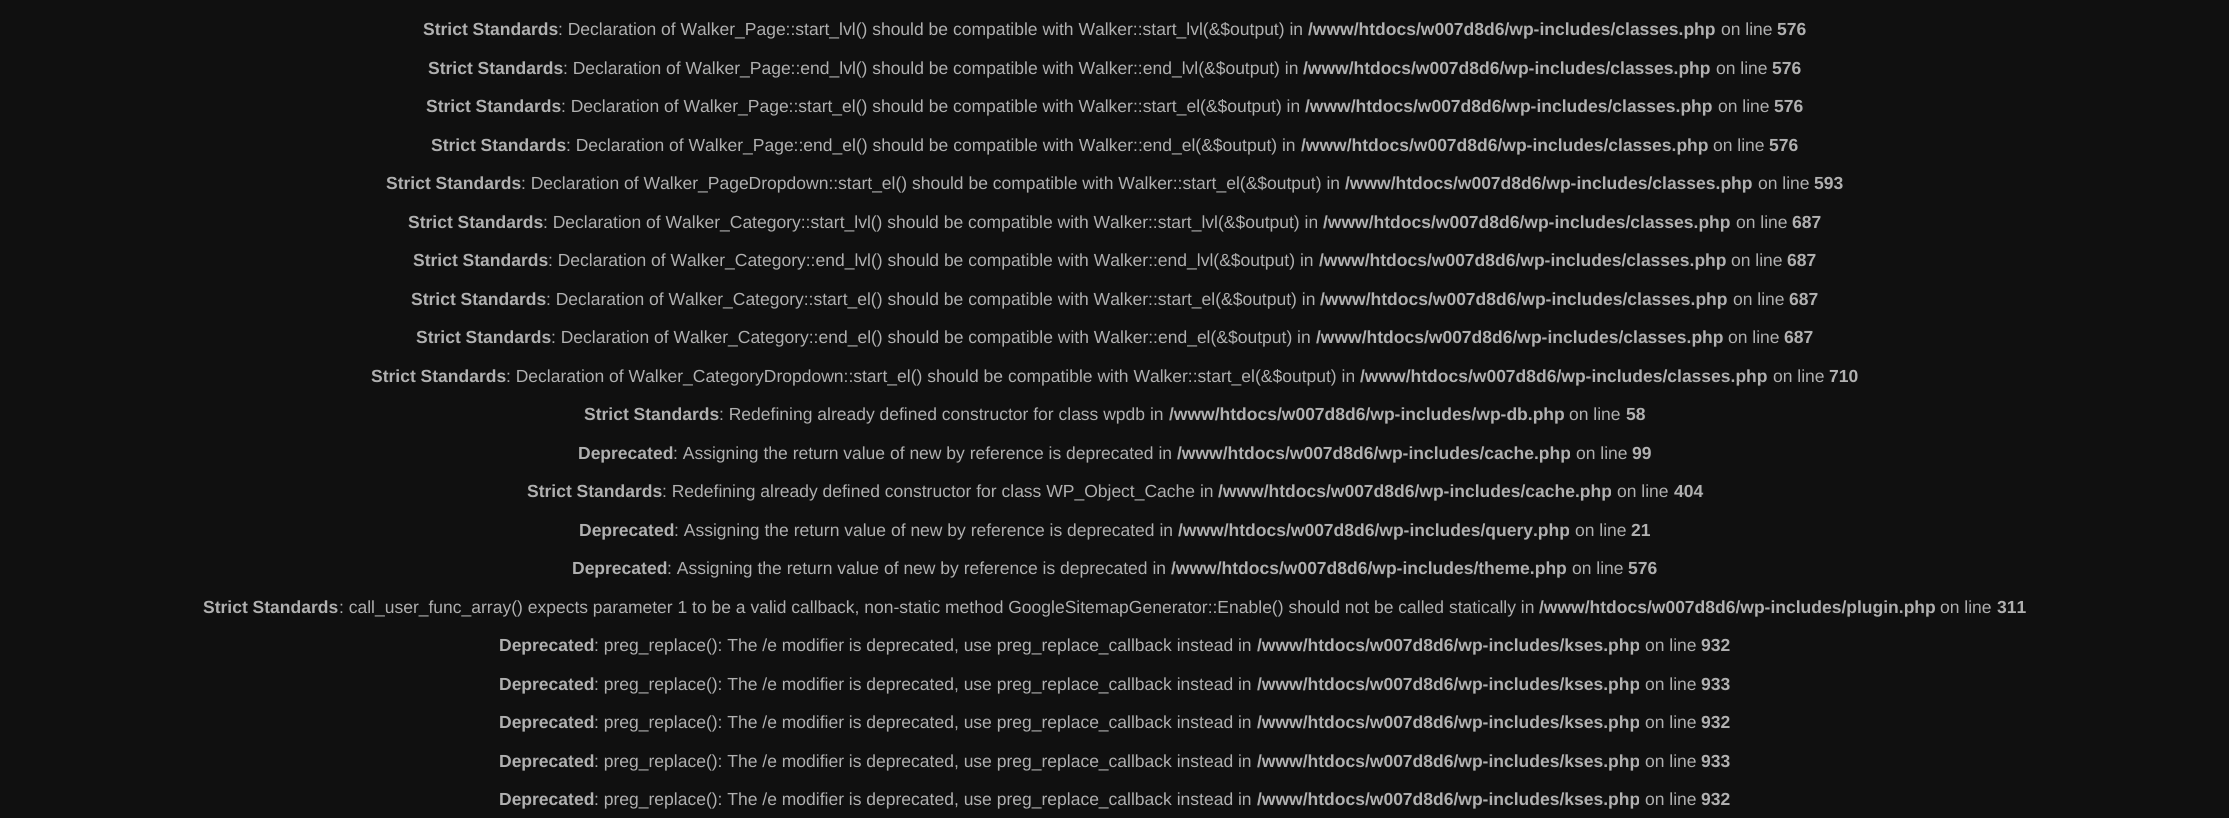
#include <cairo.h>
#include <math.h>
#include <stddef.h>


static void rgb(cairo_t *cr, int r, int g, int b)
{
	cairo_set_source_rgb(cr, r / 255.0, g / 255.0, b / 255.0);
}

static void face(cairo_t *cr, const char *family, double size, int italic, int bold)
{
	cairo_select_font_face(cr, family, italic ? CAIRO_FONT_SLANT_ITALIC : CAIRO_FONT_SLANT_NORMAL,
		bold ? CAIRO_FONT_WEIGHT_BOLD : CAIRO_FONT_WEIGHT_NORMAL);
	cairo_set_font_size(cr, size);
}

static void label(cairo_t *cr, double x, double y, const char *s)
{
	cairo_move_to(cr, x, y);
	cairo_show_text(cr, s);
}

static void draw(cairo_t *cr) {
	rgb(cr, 16, 16, 16);
	cairo_paint(cr);
	face(cr, "Liberation Sans", 17.5, 0, 1);
	rgb(cr, 176, 176, 176);
	label(cr, 423, 35, "Strict Standards");
	face(cr, "Liberation Sans", 17.5, 0, 0);
	label(cr, 558, 35, ": Declaration of Walker_Page::start_lvl() should be compatible with Walker::start_lvl(&$output) in");
	face(cr, "Liberation Sans", 17.5, 0, 1);
	label(cr, 1308, 35, "/www/htdocs/w007d8d6/wp-includes/classes.php");
	face(cr, "Liberation Sans", 17.5, 0, 0);
	label(cr, 1721, 35, "on line");
	face(cr, "Liberation Sans", 17.5, 0, 1);
	label(cr, 1777, 35, "576");
	label(cr, 428, 74, "Strict Standards");
	face(cr, "Liberation Sans", 17.5, 0, 0);
	label(cr, 563, 74, ": Declaration of Walker_Page::end_lvl() should be compatible with Walker::end_lvl(&$output) in");
	face(cr, "Liberation Sans", 17.5, 0, 1);
	label(cr, 1303, 74, "/www/htdocs/w007d8d6/wp-includes/classes.php");
	face(cr, "Liberation Sans", 17.5, 0, 0);
	label(cr, 1716, 74, "on line");
	face(cr, "Liberation Sans", 17.5, 0, 1);
	label(cr, 1772, 74, "576");
	label(cr, 426, 112, "Strict Standards");
	face(cr, "Liberation Sans", 17.5, 0, 0);
	label(cr, 561, 112, ": Declaration of Walker_Page::start_el() should be compatible with Walker::start_el(&$output) in");
	face(cr, "Liberation Sans", 17.5, 0, 1);
	label(cr, 1305, 112, "/www/htdocs/w007d8d6/wp-includes/classes.php");
	face(cr, "Liberation Sans", 17.5, 0, 0);
	label(cr, 1718, 112, "on line");
	face(cr, "Liberation Sans", 17.5, 0, 1);
	label(cr, 1774, 112, "576");
	label(cr, 431, 151, "Strict Standards");
	face(cr, "Liberation Sans", 17.5, 0, 0);
	label(cr, 566, 151, ": Declaration of Walker_Page::end_el() should be compatible with Walker::end_el(&$output) in");
	face(cr, "Liberation Sans", 17.5, 0, 1);
	label(cr, 1301, 151, "/www/htdocs/w007d8d6/wp-includes/classes.php");
	face(cr, "Liberation Sans", 17.5, 0, 0);
	label(cr, 1713, 151, "on line");
	face(cr, "Liberation Sans", 17.5, 0, 1);
	label(cr, 1769, 151, "576");
	label(cr, 386, 189, "Strict Standards");
	face(cr, "Liberation Sans", 17.5, 0, 0);
	label(cr, 521, 189, ": Declaration of Walker_PageDropdown::start_el() should be compatible with Walker::start_el(&$output) in");
	face(cr, "Liberation Sans", 17.5, 0, 1);
	label(cr, 1345, 189, "/www/htdocs/w007d8d6/wp-includes/classes.php");
	face(cr, "Liberation Sans", 17.5, 0, 0);
	label(cr, 1758, 189, "on line");
	face(cr, "Liberation Sans", 17.5, 0, 1);
	label(cr, 1814, 189, "593");
	label(cr, 408, 228, "Strict Standards");
	face(cr, "Liberation Sans", 17.5, 0, 0);
	label(cr, 543, 228, ": Declaration of Walker_Category::start_lvl() should be compatible with Walker::start_lvl(&$output) in");
	face(cr, "Liberation Sans", 17.5, 0, 1);
	label(cr, 1323, 228, "/www/htdocs/w007d8d6/wp-includes/classes.php");
	face(cr, "Liberation Sans", 17.5, 0, 0);
	label(cr, 1736, 228, "on line");
	face(cr, "Liberation Sans", 17.5, 0, 1);
	label(cr, 1792, 228, "687");
	label(cr, 413, 266, "Strict Standards");
	face(cr, "Liberation Sans", 17.5, 0, 0);
	label(cr, 548, 266, ": Declaration of Walker_Category::end_lvl() should be compatible with Walker::end_lvl(&$output) in");
	face(cr, "Liberation Sans", 17.5, 0, 1);
	label(cr, 1319, 266, "/www/htdocs/w007d8d6/wp-includes/classes.php");
	face(cr, "Liberation Sans", 17.5, 0, 0);
	label(cr, 1731, 266, "on line");
	face(cr, "Liberation Sans", 17.5, 0, 1);
	label(cr, 1787, 266, "687");
	label(cr, 411, 305, "Strict Standards");
	face(cr, "Liberation Sans", 17.5, 0, 0);
	label(cr, 546, 305, ": Declaration of Walker_Category::start_el() should be compatible with Walker::start_el(&$output) in");
	face(cr, "Liberation Sans", 17.5, 0, 1);
	label(cr, 1320, 305, "/www/htdocs/w007d8d6/wp-includes/classes.php");
	face(cr, "Liberation Sans", 17.5, 0, 0);
	label(cr, 1733, 305, "on line");
	face(cr, "Liberation Sans", 17.5, 0, 1);
	label(cr, 1789, 305, "687");
	label(cr, 416, 343, "Strict Standards");
	face(cr, "Liberation Sans", 17.5, 0, 0);
	label(cr, 551, 343, ": Declaration of Walker_Category::end_el() should be compatible with Walker::end_el(&$output) in");
	face(cr, "Liberation Sans", 17.5, 0, 1);
	label(cr, 1316, 343, "/www/htdocs/w007d8d6/wp-includes/classes.php");
	face(cr, "Liberation Sans", 17.5, 0, 0);
	label(cr, 1728, 343, "on line");
	face(cr, "Liberation Sans", 17.5, 0, 1);
	label(cr, 1784, 343, "687");
	label(cr, 371, 382, "Strict Standards");
	face(cr, "Liberation Sans", 17.5, 0, 0);
	label(cr, 506, 382, ": Declaration of Walker_CategoryDropdown::start_el() should be compatible with Walker::start_el(&$output) in");
	face(cr, "Liberation Sans", 17.5, 0, 1);
	label(cr, 1360, 382, "/www/htdocs/w007d8d6/wp-includes/classes.php");
	face(cr, "Liberation Sans", 17.5, 0, 0);
	label(cr, 1773, 382, "on line");
	face(cr, "Liberation Sans", 17.5, 0, 1);
	label(cr, 1829, 382, "710");
	label(cr, 584, 420, "Strict Standards");
	face(cr, "Liberation Sans", 17.5, 0, 0);
	label(cr, 719, 420, ": Redefining already defined constructor for class wpdb in");
	face(cr, "Liberation Sans", 17.5, 0, 1);
	label(cr, 1169, 420, "/www/htdocs/w007d8d6/wp-includes/wp-db.php");
	face(cr, "Liberation Sans", 17.5, 0, 0);
	label(cr, 1569, 420, "on line");
	face(cr, "Liberation Sans", 17.5, 0, 1);
	label(cr, 1626, 420, "58");
	label(cr, 578, 459, "Deprecated");
	face(cr, "Liberation Sans", 17.5, 0, 0);
	label(cr, 673, 459, ": Assigning the return value of new by reference is deprecated in");
	face(cr, "Liberation Sans", 17.5, 0, 1);
	label(cr, 1177, 459, "/www/htdocs/w007d8d6/wp-includes/cache.php");
	face(cr, "Liberation Sans", 17.5, 0, 0);
	label(cr, 1576, 459, "on line");
	face(cr, "Liberation Sans", 17.5, 0, 1);
	label(cr, 1632, 459, "99");
	label(cr, 527, 497, "Strict Standards");
	face(cr, "Liberation Sans", 17.5, 0, 0);
	label(cr, 662, 497, ": Redefining already defined constructor for class WP_Object_Cache in");
	face(cr, "Liberation Sans", 17.5, 0, 1);
	label(cr, 1218, 497, "/www/htdocs/w007d8d6/wp-includes/cache.php");
	face(cr, "Liberation Sans", 17.5, 0, 0);
	label(cr, 1617, 497, "on line");
	face(cr, "Liberation Sans", 17.5, 0, 1);
	label(cr, 1674, 497, "404");
	label(cr, 579, 536, "Deprecated");
	face(cr, "Liberation Sans", 17.5, 0, 0);
	label(cr, 674, 536, ": Assigning the return value of new by reference is deprecated in");
	face(cr, "Liberation Sans", 17.5, 0, 1);
	label(cr, 1178, 536, "/www/htdocs/w007d8d6/wp-includes/query.php");
	face(cr, "Liberation Sans", 17.5, 0, 0);
	label(cr, 1575, 536, "on line");
	face(cr, "Liberation Sans", 17.5, 0, 1);
	label(cr, 1631, 536, "21");
	label(cr, 572, 574, "Deprecated");
	face(cr, "Liberation Sans", 17.5, 0, 0);
	label(cr, 667, 574, ": Assigning the return value of new by reference is deprecated in");
	face(cr, "Liberation Sans", 17.5, 0, 1);
	label(cr, 1171, 574, "/www/htdocs/w007d8d6/wp-includes/theme.php");
	face(cr, "Liberation Sans", 17.5, 0, 0);
	label(cr, 1572, 574, "on line");
	face(cr, "Liberation Sans", 17.5, 0, 1);
	label(cr, 1628, 574, "576");
	label(cr, 203, 613, "Strict Standards");
	face(cr, "Liberation Sans", 17.5, 0, 0);
	label(cr, 339, 613, ": call_user_func_array() expects parameter 1 to be a valid callback, non-static method GoogleSitemapGenerator::Enable() should not be called statically in");
	face(cr, "Liberation Sans", 17.5, 0, 1);
	label(cr, 1539, 613, "/www/htdocs/w007d8d6/wp-includes/plugin.php");
	face(cr, "Liberation Sans", 17.5, 0, 0);
	label(cr, 1940, 613, "on line");
	face(cr, "Liberation Sans", 17.5, 0, 1);
	label(cr, 1997, 613, "311");
	label(cr, 499, 651, "Deprecated");
	face(cr, "Liberation Sans", 17.5, 0, 0);
	label(cr, 594, 651, ": preg_replace(): The /e modifier is deprecated, use preg_replace_callback instead in");
	face(cr, "Liberation Sans", 17.5, 0, 1);
	label(cr, 1257, 651, "/www/htdocs/w007d8d6/wp-includes/kses.php");
	face(cr, "Liberation Sans", 17.5, 0, 0);
	label(cr, 1645, 651, "on line");
	face(cr, "Liberation Sans", 17.5, 0, 1);
	label(cr, 1701, 651, "932");
	label(cr, 499, 690, "Deprecated");
	face(cr, "Liberation Sans", 17.5, 0, 0);
	label(cr, 594, 690, ": preg_replace(): The /e modifier is deprecated, use preg_replace_callback instead in");
	face(cr, "Liberation Sans", 17.5, 0, 1);
	label(cr, 1257, 690, "/www/htdocs/w007d8d6/wp-includes/kses.php");
	face(cr, "Liberation Sans", 17.5, 0, 0);
	label(cr, 1645, 690, "on line");
	face(cr, "Liberation Sans", 17.5, 0, 1);
	label(cr, 1701, 690, "933");
	label(cr, 499, 728, "Deprecated");
	face(cr, "Liberation Sans", 17.5, 0, 0);
	label(cr, 594, 728, ": preg_replace(): The /e modifier is deprecated, use preg_replace_callback instead in");
	face(cr, "Liberation Sans", 17.5, 0, 1);
	label(cr, 1257, 728, "/www/htdocs/w007d8d6/wp-includes/kses.php");
	face(cr, "Liberation Sans", 17.5, 0, 0);
	label(cr, 1645, 728, "on line");
	face(cr, "Liberation Sans", 17.5, 0, 1);
	label(cr, 1701, 728, "932");
	label(cr, 499, 767, "Deprecated");
	face(cr, "Liberation Sans", 17.5, 0, 0);
	label(cr, 594, 767, ": preg_replace(): The /e modifier is deprecated, use preg_replace_callback instead in");
	face(cr, "Liberation Sans", 17.5, 0, 1);
	label(cr, 1257, 767, "/www/htdocs/w007d8d6/wp-includes/kses.php");
	face(cr, "Liberation Sans", 17.5, 0, 0);
	label(cr, 1645, 767, "on line");
	face(cr, "Liberation Sans", 17.5, 0, 1);
	label(cr, 1701, 767, "933");
	label(cr, 499, 805, "Deprecated");
	face(cr, "Liberation Sans", 17.5, 0, 0);
	label(cr, 594, 805, ": preg_replace(): The /e modifier is deprecated, use preg_replace_callback instead in");
	face(cr, "Liberation Sans", 17.5, 0, 1);
	label(cr, 1257, 805, "/www/htdocs/w007d8d6/wp-includes/kses.php");
	face(cr, "Liberation Sans", 17.5, 0, 0);
	label(cr, 1645, 805, "on line");
	face(cr, "Liberation Sans", 17.5, 0, 1);
	label(cr, 1701, 805, "932");
}

int main(void) {
	cairo_surface_t *surface = cairo_image_surface_create(CAIRO_FORMAT_RGB24, 2229, 818);
	cairo_t *cr = cairo_create(surface);
	cairo_font_options_t *options = cairo_font_options_create();
	cairo_font_options_set_hint_metrics(options, CAIRO_HINT_METRICS_OFF);
	cairo_font_options_set_hint_style(options, CAIRO_HINT_STYLE_NONE);
	cairo_set_font_options(cr, options);
	cairo_set_miter_limit(cr, 4);
	draw(cr);
	cairo_surface_write_to_png(surface, "render.png");
	cairo_font_options_destroy(options);
	cairo_destroy(cr);
	cairo_surface_destroy(surface);
	return 0;
}
